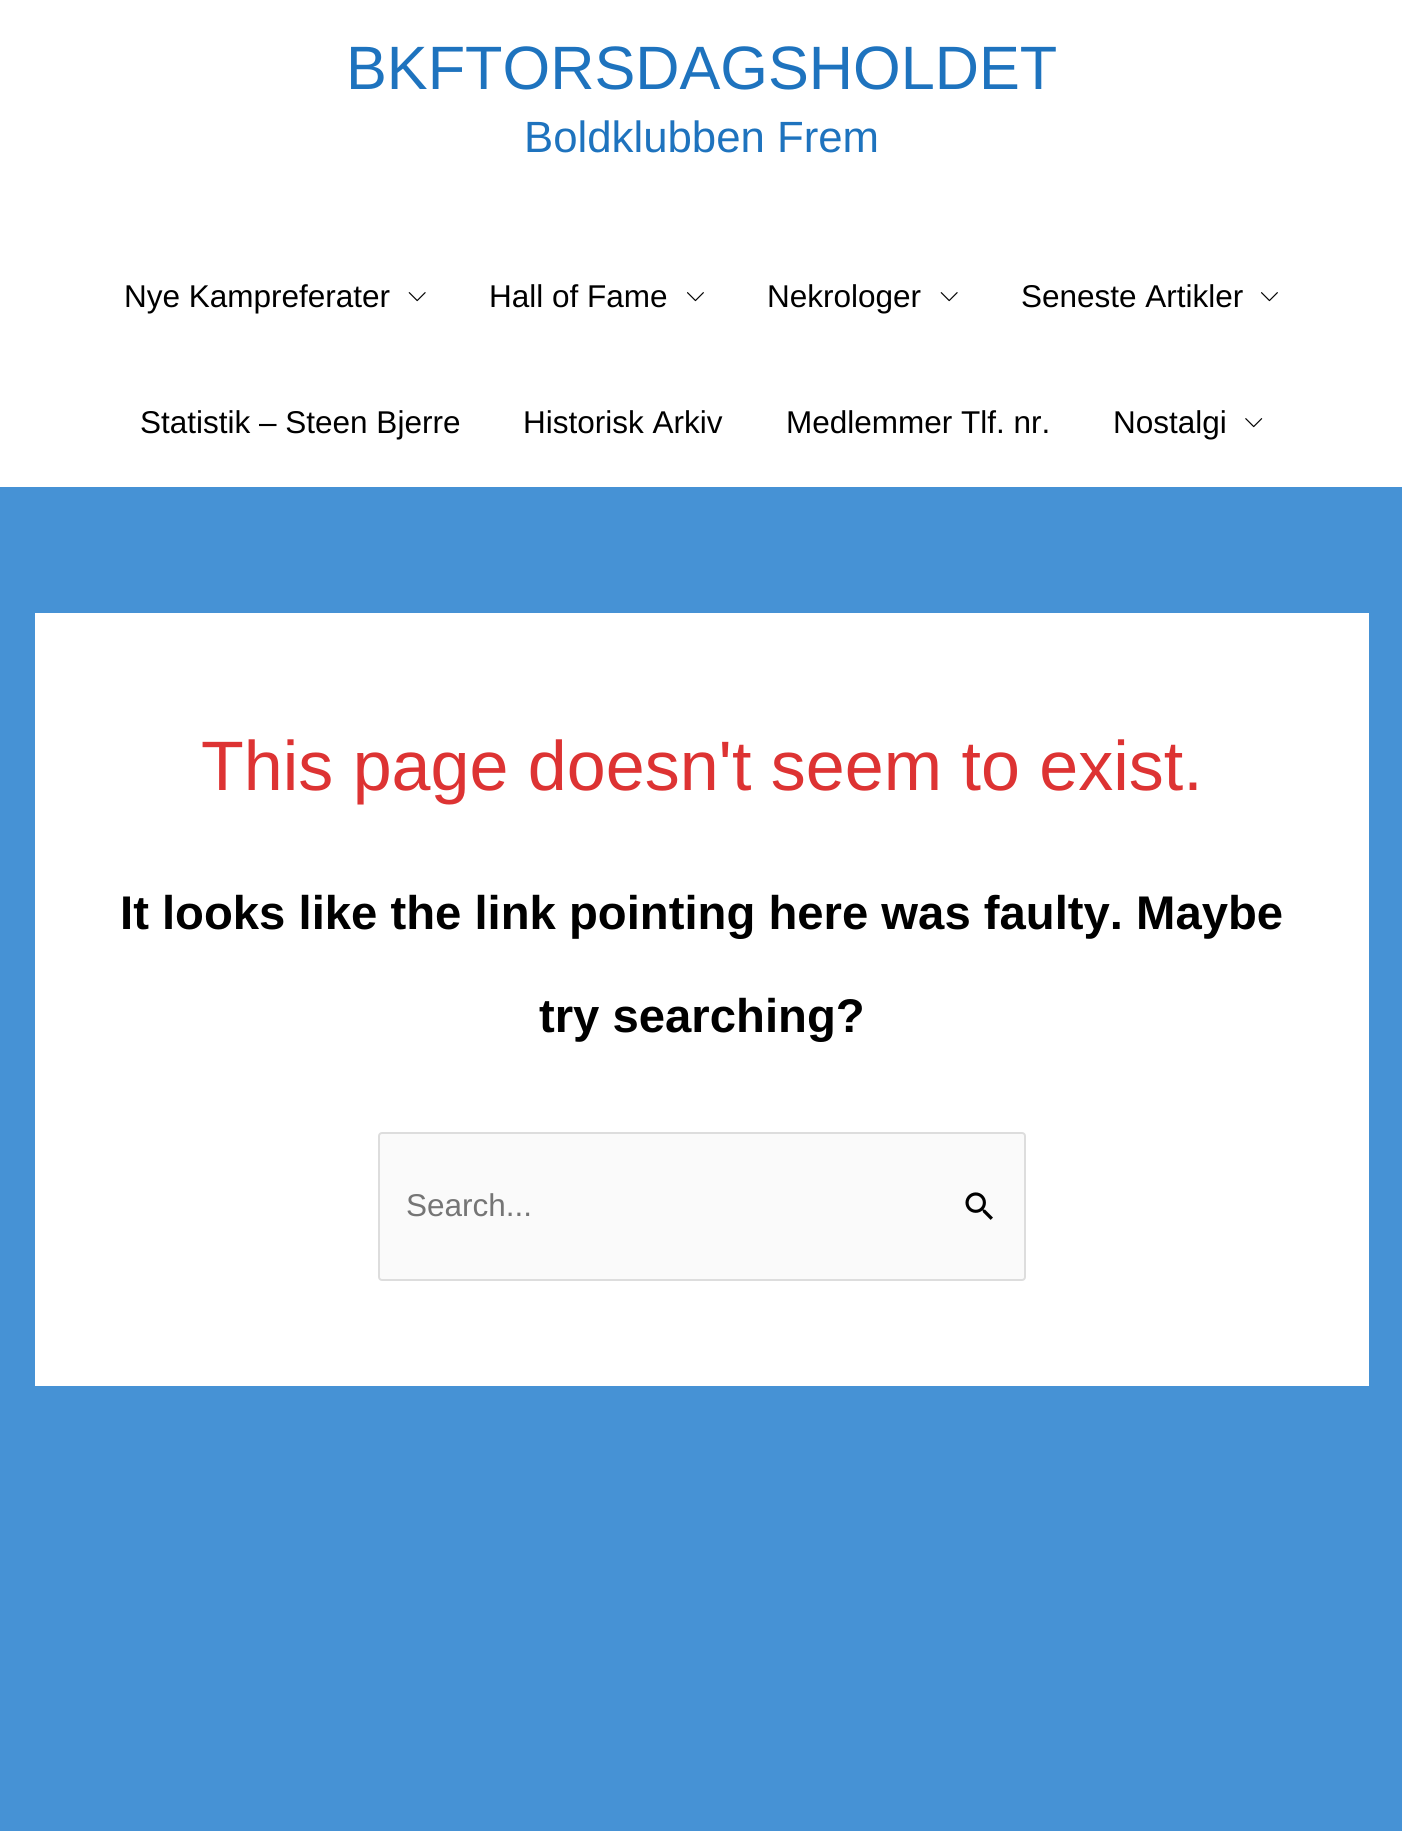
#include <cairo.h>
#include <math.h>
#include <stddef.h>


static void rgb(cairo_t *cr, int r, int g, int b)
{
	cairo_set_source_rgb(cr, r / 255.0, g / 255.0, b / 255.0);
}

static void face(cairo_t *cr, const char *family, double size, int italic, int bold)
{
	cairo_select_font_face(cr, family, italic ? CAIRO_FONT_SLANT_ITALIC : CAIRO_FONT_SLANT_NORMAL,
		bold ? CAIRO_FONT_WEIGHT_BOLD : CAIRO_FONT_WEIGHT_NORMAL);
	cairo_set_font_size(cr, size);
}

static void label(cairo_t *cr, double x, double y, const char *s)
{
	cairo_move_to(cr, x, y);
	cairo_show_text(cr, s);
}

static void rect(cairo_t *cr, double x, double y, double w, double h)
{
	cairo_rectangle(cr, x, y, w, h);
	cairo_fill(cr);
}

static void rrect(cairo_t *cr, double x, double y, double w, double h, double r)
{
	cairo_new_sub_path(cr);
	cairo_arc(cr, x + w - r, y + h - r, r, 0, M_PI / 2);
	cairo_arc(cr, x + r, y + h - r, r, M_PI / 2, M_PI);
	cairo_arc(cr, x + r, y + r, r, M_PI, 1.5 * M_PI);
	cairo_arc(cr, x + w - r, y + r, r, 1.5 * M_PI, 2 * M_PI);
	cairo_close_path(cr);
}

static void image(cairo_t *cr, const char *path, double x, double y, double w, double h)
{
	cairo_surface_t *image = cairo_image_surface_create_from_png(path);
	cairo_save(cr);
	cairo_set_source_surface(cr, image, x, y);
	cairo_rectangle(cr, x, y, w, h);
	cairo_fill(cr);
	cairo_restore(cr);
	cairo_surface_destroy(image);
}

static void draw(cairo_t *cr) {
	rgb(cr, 70, 146, 213);
	cairo_paint(cr);
	rgb(cr, 255, 255, 255);
	rect(cr, 0, 0, 1402, 487);
	face(cr, "Liberation Sans", 61.25, 0, 0);
	rgb(cr, 30, 115, 190);
	label(cr, 346, 89, "BKFTORSDAGSHOLDET");
	face(cr, "Liberation Sans", 43.75, 0, 0);
	label(cr, 524, 152, "Boldklubben Frem");
	face(cr, "Liberation Sans", 31.5, 0, 0);
	rgb(cr, 0, 0, 0);
	label(cr, 124, 307, "Nye Kampreferater");
	image(cr, "image0.png", 408, 292, 18, 10);
	label(cr, 489, 307, "Hall of Fame");
	image(cr, "image1.png", 687, 292, 17, 10);
	label(cr, 767, 307, "Nekrologer");
	image(cr, "image0.png", 940, 292, 18, 10);
	label(cr, 1021, 307, "Seneste Artikler");
	image(cr, "image1.png", 1261, 292, 17, 10);
	label(cr, 140, 433, "Statistik – Steen Bjerre");
	label(cr, 523, 433, "Historisk Arkiv");
	label(cr, 786, 433, "Medlemmer Tlf. nr.");
	label(cr, 1113, 433, "Nostalgi");
	image(cr, "image2.png", 1245, 418, 18, 10);
	rgb(cr, 255, 255, 255);
	rect(cr, 35, 613, 1334, 773);
	face(cr, "Liberation Sans", 70, 0, 0);
	rgb(cr, 221, 51, 51);
	label(cr, 201, 790, "This page doesn't seem to exist.");
	face(cr, "Liberation Sans", 47.25, 0, 1);
	rgb(cr, 0, 0, 0);
	label(cr, 120, 929, "It looks like the link pointing here was faulty. Maybe");
	label(cr, 539, 1032, "try searching?");
	rgb(cr, 250, 250, 250);
	rrect(cr, 379, 1133, 646, 147, 3);
	cairo_fill_preserve(cr);
	rgb(cr, 221, 221, 221);
	cairo_stroke(cr);
	face(cr, "Liberation Sans", 31.5, 0, 0);
	rgb(cr, 117, 117, 117);
	label(cr, 406, 1216, "Search...");
	image(cr, "image3.png", 965, 1192, 28, 28);
}

int main(void) {
	cairo_surface_t *surface = cairo_image_surface_create(CAIRO_FORMAT_RGB24, 1402, 1831);
	cairo_t *cr = cairo_create(surface);
	cairo_font_options_t *options = cairo_font_options_create();
	cairo_font_options_set_hint_metrics(options, CAIRO_HINT_METRICS_OFF);
	cairo_font_options_set_hint_style(options, CAIRO_HINT_STYLE_NONE);
	cairo_set_font_options(cr, options);
	cairo_set_miter_limit(cr, 4);
	draw(cr);
	cairo_surface_write_to_png(surface, "render.png");
	cairo_font_options_destroy(options);
	cairo_destroy(cr);
	cairo_surface_destroy(surface);
	return 0;
}
